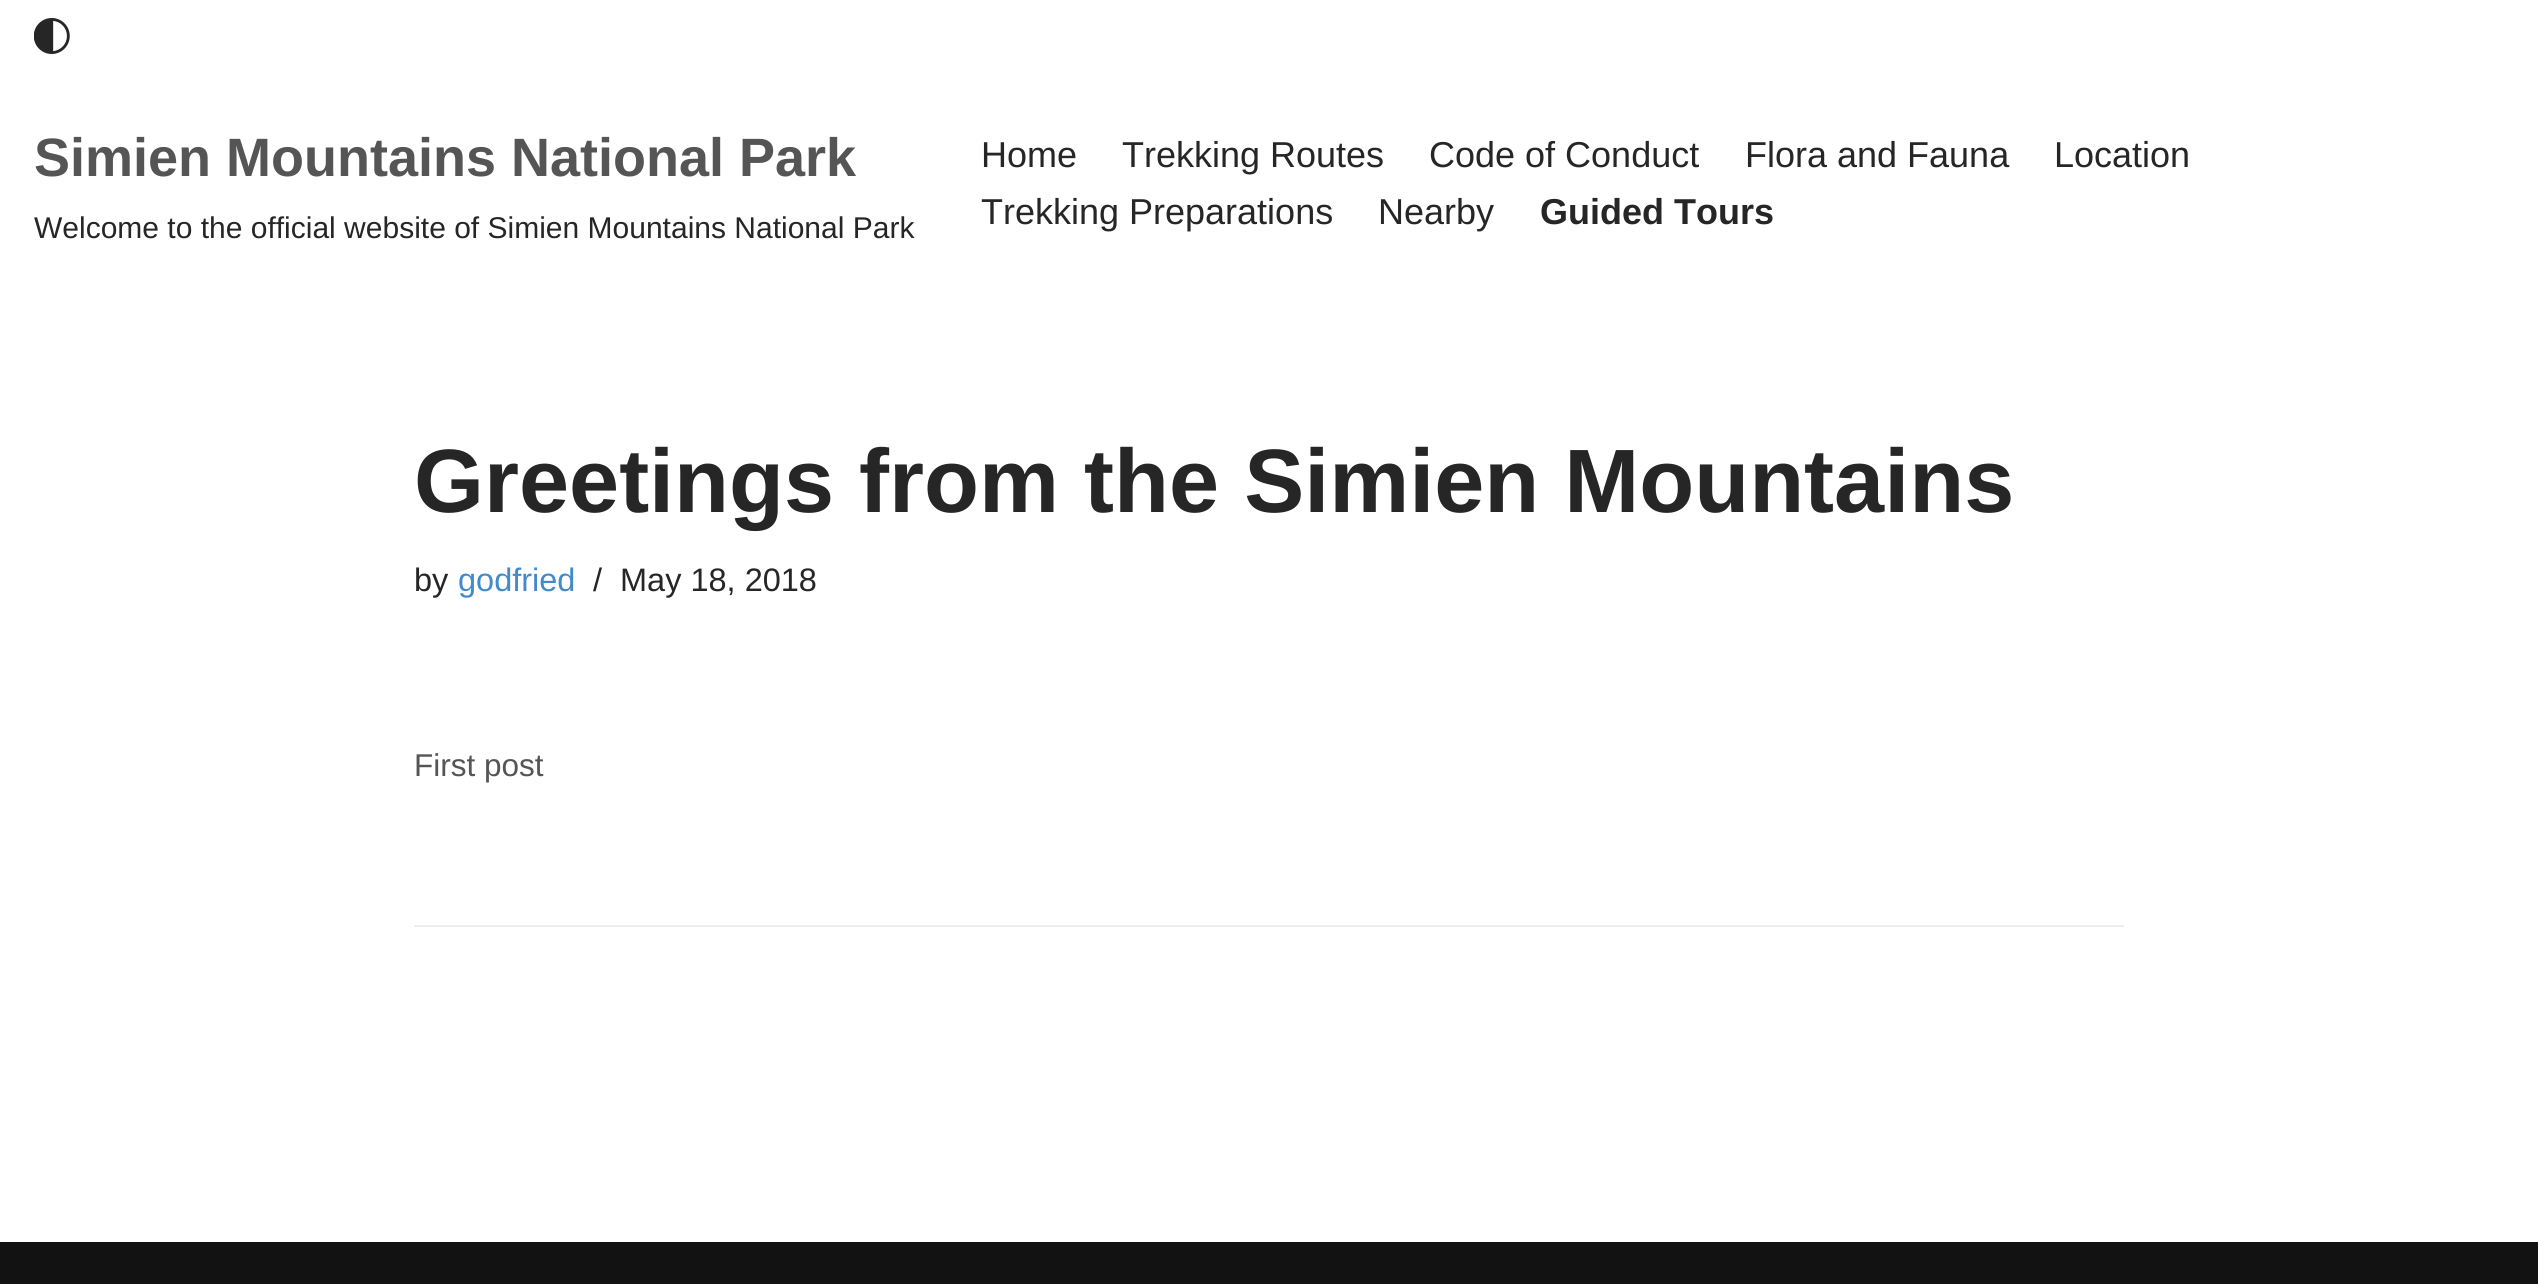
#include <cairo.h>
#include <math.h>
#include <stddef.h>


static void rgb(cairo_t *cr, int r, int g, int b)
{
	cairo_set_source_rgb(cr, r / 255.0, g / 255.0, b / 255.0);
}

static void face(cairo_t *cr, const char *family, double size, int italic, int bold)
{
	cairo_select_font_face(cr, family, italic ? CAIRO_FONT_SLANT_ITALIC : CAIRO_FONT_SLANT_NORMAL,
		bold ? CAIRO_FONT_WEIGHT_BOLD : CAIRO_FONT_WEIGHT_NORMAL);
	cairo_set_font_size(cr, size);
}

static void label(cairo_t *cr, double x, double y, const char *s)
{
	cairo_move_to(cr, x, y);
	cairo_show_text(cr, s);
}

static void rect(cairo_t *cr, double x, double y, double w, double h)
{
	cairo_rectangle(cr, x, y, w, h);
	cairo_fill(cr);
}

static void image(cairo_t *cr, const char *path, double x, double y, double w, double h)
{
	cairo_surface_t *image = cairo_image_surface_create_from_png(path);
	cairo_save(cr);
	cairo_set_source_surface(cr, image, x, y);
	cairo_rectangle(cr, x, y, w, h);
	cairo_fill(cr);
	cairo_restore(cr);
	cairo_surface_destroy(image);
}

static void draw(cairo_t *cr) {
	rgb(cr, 255, 255, 255);
	cairo_paint(cr);
	image(cr, "image0.png", 34, 18, 36, 36);
	face(cr, "Liberation Sans", 54, 0, 1);
	rgb(cr, 85, 85, 85);
	label(cr, 34, 176, "Simien Mountains National Park");
	face(cr, "Liberation Sans", 30, 0, 0);
	rgb(cr, 39, 38, 38);
	label(cr, 34, 238, "Welcome to the official website of Simien Mountains National Park");
	face(cr, "Liberation Sans", 36, 0, 0);
	label(cr, 981, 167, "Home");
	label(cr, 1122, 167, "Trekking Routes");
	label(cr, 1429, 167, "Code of Conduct");
	label(cr, 1745, 167, "Flora and Fauna");
	label(cr, 2054, 167, "Location");
	label(cr, 981, 224, "Trekking Preparations");
	label(cr, 1378, 224, "Nearby");
	face(cr, "Liberation Sans", 36, 0, 1);
	label(cr, 1540, 224, "Guided Tours");
	face(cr, "Liberation Sans", 90, 0, 1);
	label(cr, 414, 512, "Greetings from the Simien Mountains");
	face(cr, "Liberation Sans", 32.5, 0, 0);
	label(cr, 414, 591, "by");
	rgb(cr, 66, 139, 202);
	label(cr, 458, 591, "godfried");
	rgb(cr, 39, 38, 38);
	label(cr, 593, 591, "/");
	label(cr, 620, 591, "May 18, 2018");
	face(cr, "Liberation Sans", 31.5, 0, 0);
	rgb(cr, 85, 85, 85);
	label(cr, 414, 776, "First post");
	rgb(cr, 237, 237, 237);
	rect(cr, 414, 925, 1710, 2);
	rgb(cr, 18, 18, 18);
	rect(cr, 0, 1242, 2538, 42);
}

int main(void) {
	cairo_surface_t *surface = cairo_image_surface_create(CAIRO_FORMAT_RGB24, 2538, 1284);
	cairo_t *cr = cairo_create(surface);
	cairo_font_options_t *options = cairo_font_options_create();
	cairo_font_options_set_hint_metrics(options, CAIRO_HINT_METRICS_OFF);
	cairo_font_options_set_hint_style(options, CAIRO_HINT_STYLE_NONE);
	cairo_set_font_options(cr, options);
	cairo_set_miter_limit(cr, 4);
	draw(cr);
	cairo_surface_write_to_png(surface, "render.png");
	cairo_font_options_destroy(options);
	cairo_destroy(cr);
	cairo_surface_destroy(surface);
	return 0;
}
